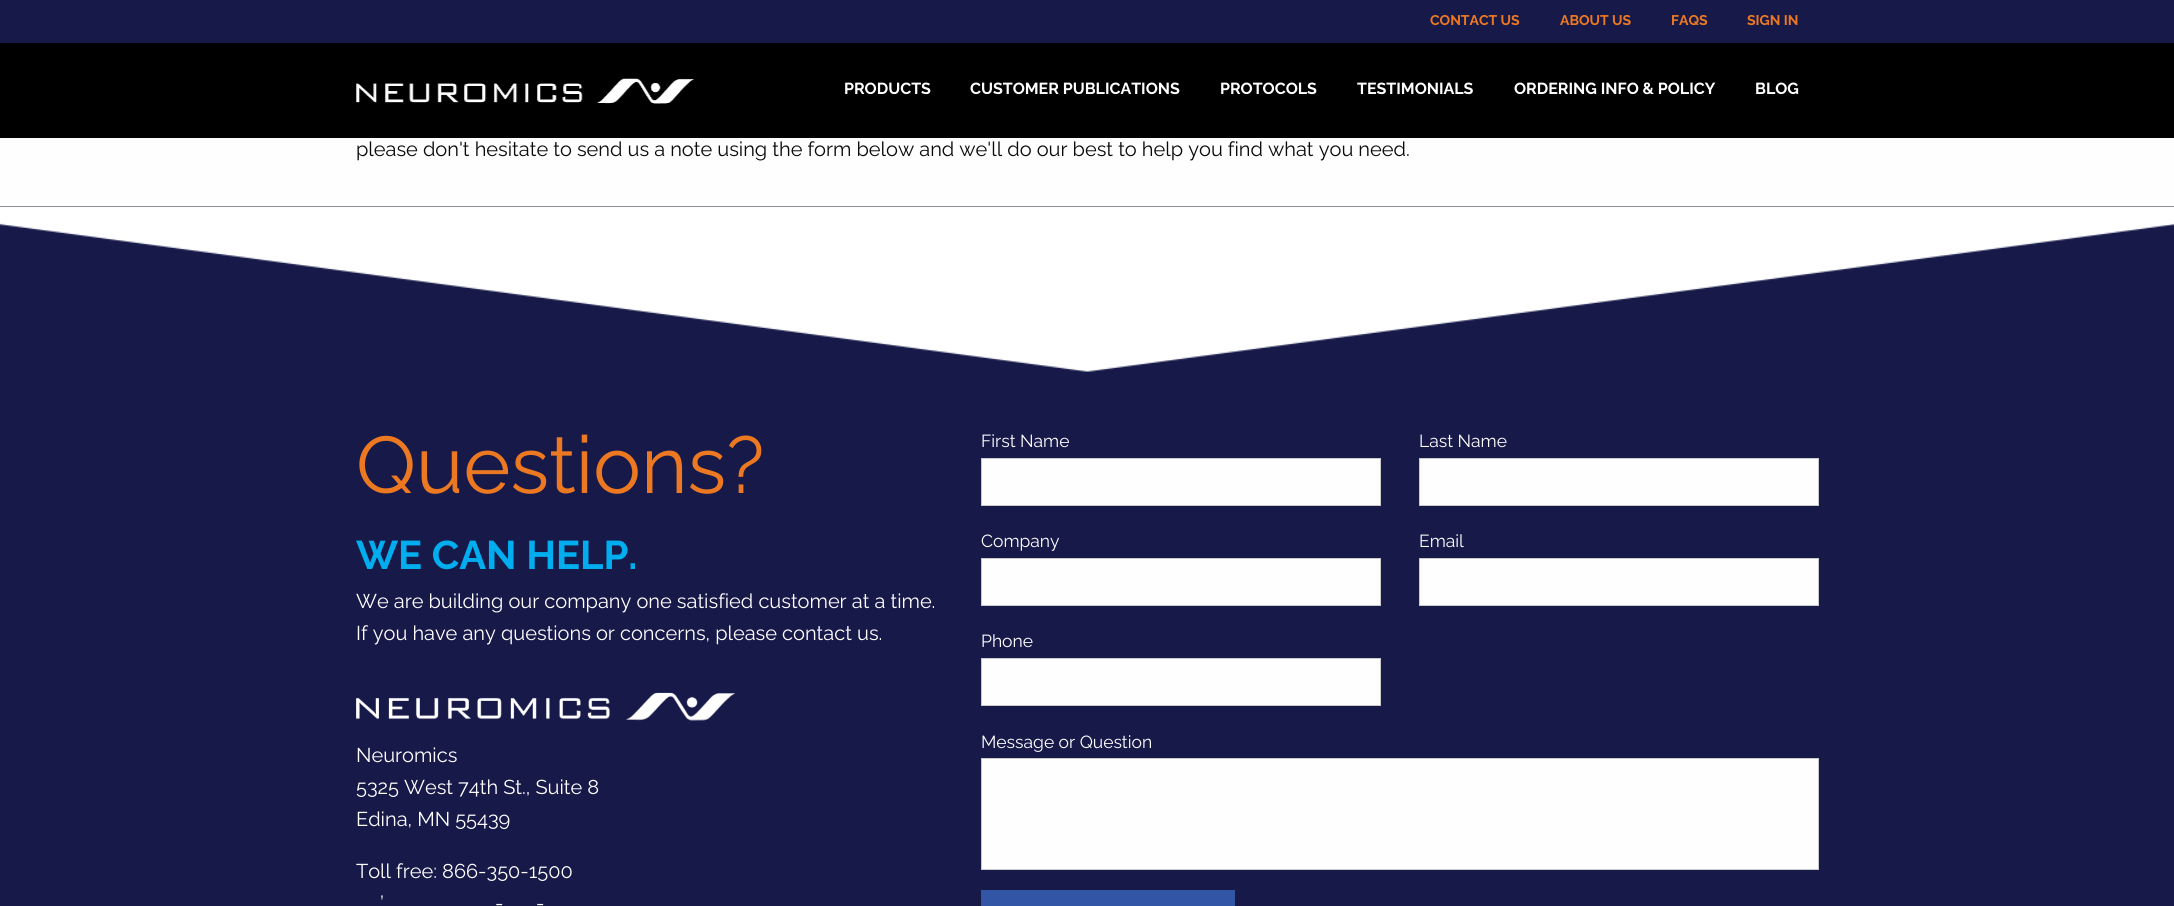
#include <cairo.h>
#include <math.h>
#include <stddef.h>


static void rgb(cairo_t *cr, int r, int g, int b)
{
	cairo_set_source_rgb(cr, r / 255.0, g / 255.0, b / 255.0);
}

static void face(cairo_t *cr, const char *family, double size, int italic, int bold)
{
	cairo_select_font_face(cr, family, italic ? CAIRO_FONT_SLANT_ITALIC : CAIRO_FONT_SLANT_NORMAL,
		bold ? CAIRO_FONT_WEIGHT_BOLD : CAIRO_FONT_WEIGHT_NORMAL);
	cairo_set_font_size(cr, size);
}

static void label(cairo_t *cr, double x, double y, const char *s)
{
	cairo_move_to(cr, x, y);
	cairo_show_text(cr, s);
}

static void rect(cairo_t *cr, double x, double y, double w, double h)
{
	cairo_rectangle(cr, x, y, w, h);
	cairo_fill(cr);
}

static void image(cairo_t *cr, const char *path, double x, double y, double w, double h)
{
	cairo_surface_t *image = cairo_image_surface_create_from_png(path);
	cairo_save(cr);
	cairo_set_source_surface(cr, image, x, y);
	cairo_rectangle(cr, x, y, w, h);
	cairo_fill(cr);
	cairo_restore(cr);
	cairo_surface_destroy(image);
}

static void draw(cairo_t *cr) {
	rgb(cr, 23, 25, 73);
	cairo_paint(cr);
	face(cr, "Raleway", 14, 0, 1);
	rgb(cr, 236, 121, 33);
	label(cr, 1430, 25, "CONTACT US");
	label(cr, 1560, 25, "ABOUT US");
	label(cr, 1671, 25, "FAQS");
	label(cr, 1747, 25, "SIGN IN");
	rgb(cr, 0, 0, 0);
	rect(cr, 0, 43, 2174, 95);
	image(cr, "image0.png", 356, 78, 339, 26);
	face(cr, "Raleway", 16, 0, 1);
	rgb(cr, 255, 255, 255);
	label(cr, 844, 94, "PRODUCTS");
	label(cr, 970, 94, "CUSTOMER PUBLICATIONS");
	label(cr, 1220, 94, "PROTOCOLS");
	label(cr, 1357, 94, "TESTIMONIALS");
	label(cr, 1514, 94, "ORDERING INFO & POLICY");
	label(cr, 1755, 94, "BLOG");
	rgb(cr, 254, 254, 254);
	rect(cr, 0, 138, 2174, 68);
	face(cr, "Raleway", 20, 0, 0);
	rgb(cr, 10, 10, 10);
	label(cr, 356, 156, "please don't hesitate to send us a note using the form below and we'll do our best to help you find what you need.");
	image(cr, "image1.png", 0, 206, 2174, 166);
	face(cr, "Raleway", 80, 0, 0);
	rgb(cr, 236, 121, 33);
	label(cr, 356, 493, "Questions?");
	face(cr, "Raleway", 40, 0, 1);
	rgb(cr, 0, 174, 239);
	label(cr, 356, 569, "WE CAN HELP.");
	face(cr, "Raleway", 20, 0, 0);
	rgb(cr, 255, 255, 255);
	label(cr, 356, 608, "We are building our company one satisfied customer at a time.");
	label(cr, 356, 640, "If you have any questions or concerns, please contact us.");
	image(cr, "image2.png", 356, 692, 380, 29);
	label(cr, 356, 762, "Neuromics");
	label(cr, 356, 794, "5325 West 74th St., Suite 8");
	label(cr, 356, 826, "Edina, MN 55439");
	label(cr, 356, 878, "Toll free: 866-350-1500");
	label(cr, 380, 910, "’");
	label(cr, 495, 910, "-");
	label(cr, 536, 910, "-");
	face(cr, "Raleway", 17.5, 0, 0);
	label(cr, 981, 447, "First Name");
	rgb(cr, 254, 254, 254);
	cairo_rectangle(cr, 981.5, 458.5, 399, 47);
	cairo_fill_preserve(cr);
	rgb(cr, 202, 202, 202);
	cairo_set_line_width(cr, 1);
	cairo_stroke(cr);
	rgb(cr, 255, 255, 255);
	label(cr, 1419, 447, "Last Name");
	rgb(cr, 254, 254, 254);
	cairo_rectangle(cr, 1419.5, 458.5, 399, 47);
	cairo_fill_preserve(cr);
	rgb(cr, 202, 202, 202);
	cairo_stroke(cr);
	rgb(cr, 255, 255, 255);
	label(cr, 981, 547, "Company");
	rgb(cr, 254, 254, 254);
	cairo_rectangle(cr, 981.5, 558.5, 399, 47);
	cairo_fill_preserve(cr);
	rgb(cr, 202, 202, 202);
	cairo_stroke(cr);
	rgb(cr, 255, 255, 255);
	label(cr, 1419, 547, "Email");
	rgb(cr, 254, 254, 254);
	cairo_rectangle(cr, 1419.5, 558.5, 399, 47);
	cairo_fill_preserve(cr);
	rgb(cr, 202, 202, 202);
	cairo_stroke(cr);
	rgb(cr, 255, 255, 255);
	label(cr, 981, 647, "Phone");
	rgb(cr, 254, 254, 254);
	cairo_rectangle(cr, 981.5, 658.5, 399, 47);
	cairo_fill_preserve(cr);
	rgb(cr, 202, 202, 202);
	cairo_stroke(cr);
	rgb(cr, 255, 255, 255);
	label(cr, 981, 748, "Message or Question");
	rgb(cr, 254, 254, 254);
	cairo_rectangle(cr, 981.5, 758.5, 837, 111);
	cairo_fill_preserve(cr);
	rgb(cr, 202, 202, 202);
	cairo_stroke(cr);
	rgb(cr, 50, 86, 165);
	rect(cr, 981, 890, 254, 16);
}

int main(void) {
	cairo_surface_t *surface = cairo_image_surface_create(CAIRO_FORMAT_RGB24, 2174, 906);
	cairo_t *cr = cairo_create(surface);
	cairo_font_options_t *options = cairo_font_options_create();
	cairo_font_options_set_hint_metrics(options, CAIRO_HINT_METRICS_OFF);
	cairo_font_options_set_hint_style(options, CAIRO_HINT_STYLE_NONE);
	cairo_set_font_options(cr, options);
	cairo_set_miter_limit(cr, 4);
	draw(cr);
	cairo_surface_write_to_png(surface, "render.png");
	cairo_font_options_destroy(options);
	cairo_destroy(cr);
	cairo_surface_destroy(surface);
	return 0;
}
